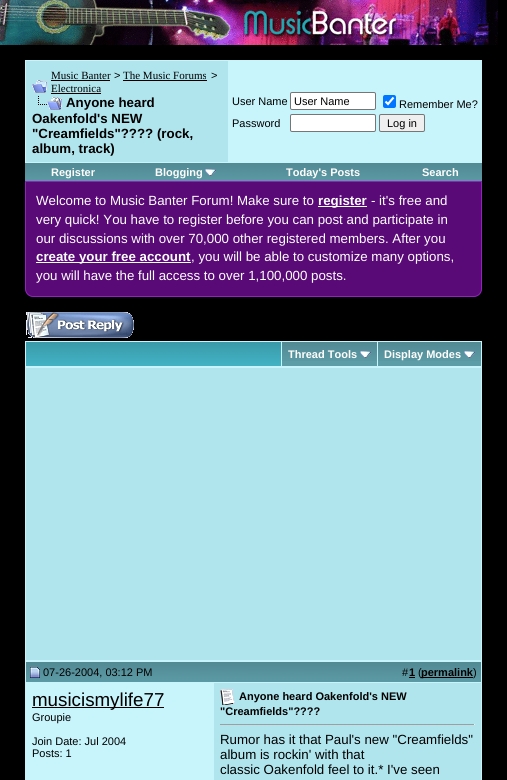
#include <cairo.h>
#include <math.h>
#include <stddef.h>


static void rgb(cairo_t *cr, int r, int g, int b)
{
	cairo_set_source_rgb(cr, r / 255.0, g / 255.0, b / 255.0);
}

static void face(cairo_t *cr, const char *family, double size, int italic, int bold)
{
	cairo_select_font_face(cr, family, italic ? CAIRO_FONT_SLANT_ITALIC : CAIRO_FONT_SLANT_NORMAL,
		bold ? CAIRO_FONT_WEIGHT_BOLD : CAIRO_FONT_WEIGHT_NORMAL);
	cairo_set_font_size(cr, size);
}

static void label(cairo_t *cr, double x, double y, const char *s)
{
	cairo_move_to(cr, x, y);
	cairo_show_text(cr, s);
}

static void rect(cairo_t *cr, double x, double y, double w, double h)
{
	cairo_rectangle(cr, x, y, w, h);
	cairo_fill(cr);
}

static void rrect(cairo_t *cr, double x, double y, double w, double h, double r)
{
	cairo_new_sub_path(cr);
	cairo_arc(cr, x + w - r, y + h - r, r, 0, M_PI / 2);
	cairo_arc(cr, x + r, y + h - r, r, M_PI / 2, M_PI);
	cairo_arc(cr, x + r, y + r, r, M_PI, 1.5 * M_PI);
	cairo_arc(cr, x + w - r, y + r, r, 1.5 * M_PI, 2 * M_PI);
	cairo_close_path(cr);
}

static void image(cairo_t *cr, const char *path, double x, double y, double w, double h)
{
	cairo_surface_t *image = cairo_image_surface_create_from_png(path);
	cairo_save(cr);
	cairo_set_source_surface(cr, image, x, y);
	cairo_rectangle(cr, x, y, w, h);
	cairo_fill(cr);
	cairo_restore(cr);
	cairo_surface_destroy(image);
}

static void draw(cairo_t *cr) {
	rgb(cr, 0, 0, 0);
	cairo_paint(cr);
	image(cr, "image0.png", 0, 0, 498, 45);
	rgb(cr, 200, 244, 251);
	rect(cr, 25, 60, 457, 103);
	rgb(cr, 176, 229, 238);
	rect(cr, 26, 61, 202, 101);
	image(cr, "image1.png", 32, 80, 15, 13);
	face(cr, "Liberation Serif", 11, 0, 0);
	rgb(cr, 0, 0, 0);
	label(cr, 51, 79, "Music Banter");
	rect(cr, 51, 80, 59, 1);
	face(cr, "Liberation Sans", 11, 0, 0);
	label(cr, 114, 79, ">");
	face(cr, "Liberation Serif", 11, 0, 0);
	label(cr, 123, 79, "The Music Forums");
	rect(cr, 123, 80, 84, 1);
	face(cr, "Liberation Sans", 11, 0, 0);
	label(cr, 211, 79, ">");
	face(cr, "Liberation Serif", 11, 0, 0);
	label(cr, 51, 92, "Electronica");
	rect(cr, 51, 93, 50, 1);
	image(cr, "image2.png", 38, 96, 24, 14);
	face(cr, "Liberation Sans", 13.3, 0, 1);
	label(cr, 66, 107, "Anyone heard");
	label(cr, 32, 123, "Oakenfold's NEW");
	label(cr, 32, 138, "\"Creamfields\"?\077?\077 (rock,");
	label(cr, 32, 153, "album, track)");
	face(cr, "Liberation Sans", 11, 0, 0);
	label(cr, 232, 105, "User Name");
	rgb(cr, 255, 255, 255);
	rrect(cr, 290.5, 92.5, 85, 17, 1.5);
	cairo_fill_preserve(cr);
	rgb(cr, 118, 118, 118);
	cairo_set_line_width(cr, 1);
	cairo_stroke(cr);
	rgb(cr, 0, 0, 0);
	label(cr, 294, 105, "User Name");
	rgb(cr, 0, 117, 255);
	rrect(cr, 383, 95, 13, 13, 2);
	cairo_fill(cr);
	cairo_new_path(cr);
	cairo_move_to(cr, 385.5, 101.5);
	cairo_line_to(cr, 388, 104);
	cairo_line_to(cr, 393.5, 97.5);
	rgb(cr, 255, 255, 255);
	cairo_set_line_width(cr, 2.1);
	cairo_stroke(cr);
	rgb(cr, 0, 0, 0);
	label(cr, 399, 108, "Remember Me?");
	label(cr, 232, 127, "Password");
	rgb(cr, 255, 255, 255);
	rrect(cr, 290.5, 114.5, 85, 17, 1.5);
	cairo_fill_preserve(cr);
	rgb(cr, 118, 118, 118);
	cairo_set_line_width(cr, 1);
	cairo_stroke(cr);
	rgb(cr, 239, 239, 239);
	rrect(cr, 379.5, 114.5, 45, 17, 1.5);
	cairo_fill_preserve(cr);
	rgb(cr, 118, 118, 118);
	cairo_stroke(cr);
	rgb(cr, 0, 0, 0);
	label(cr, 387, 127, "Log in");
	image(cr, "image3.png", 25, 163, 97, 18);
	face(cr, "Liberation Sans", 11, 0, 1);
	rgb(cr, 255, 255, 255);
	label(cr, 51, 176, "Register");
	image(cr, "image4.png", 122, 163, 127, 18);
	label(cr, 155, 176, "Blogging");
	image(cr, "image5.png", 205, 169, 11, 7);
	image(cr, "image6.png", 249, 163, 149, 18);
	label(cr, 286, 176, "Today's Posts");
	image(cr, "image7.png", 398, 163, 84, 18);
	label(cr, 422, 176, "Search");
	rgb(cr, 89, 10, 118);
	cairo_new_path(cr);
	cairo_move_to(cr, 25.5, 181.5);
	cairo_line_to(cr, 481.5, 181.5);
	cairo_line_to(cr, 481.5, 289);
	cairo_curve_to(cr, 481.5, 293, 478, 296.5, 474, 296.5);
	cairo_line_to(cr, 33, 296.5);
	cairo_curve_to(cr, 29, 296.5, 25.5, 293, 25.5, 289);
	cairo_close_path(cr);
	cairo_fill_preserve(cr);
	rgb(cr, 148, 35, 190);
	cairo_stroke(cr);
	face(cr, "Liberation Sans", 13.3, 0, 0);
	rgb(cr, 255, 255, 255);
	label(cr, 36, 205, "Welcome to Music Banter Forum! Make sure to");
	rect(cr, 318, 206, 49, 1);
	face(cr, "Liberation Sans", 13.3, 0, 1);
	label(cr, 318, 205, "register");
	face(cr, "Liberation Sans", 13.3, 0, 0);
	label(cr, 371, 205, "- it's free and");
	label(cr, 36, 224, "very quick! You have to register before you can post and participate in");
	label(cr, 36, 243, "our discussions with over 70,000 other registered members. After you");
	rect(cr, 36, 262, 155, 1);
	face(cr, "Liberation Sans", 13.3, 0, 1);
	label(cr, 36, 261, "create your free account");
	face(cr, "Liberation Sans", 13.3, 0, 0);
	label(cr, 191, 261, ", you will be able to customize many options,");
	label(cr, 36, 280, "you will have the full access to over 1,100,000 posts.");
	image(cr, "image8.png", 26, 312, 108, 26);
	rgb(cr, 200, 244, 251);
	rect(cr, 25, 341, 457, 320);
	image(cr, "image9.png", 26, 342, 255, 24);
	rgb(cr, 93, 157, 168);
	rect(cr, 282, 361, 95, 5);
	image(cr, "image10.png", 282, 342, 95, 19);
	face(cr, "Liberation Sans", 11, 0, 1);
	rgb(cr, 255, 255, 255);
	label(cr, 288, 358, "Thread Tools");
	image(cr, "image11.png", 360, 351, 11, 7);
	rgb(cr, 93, 157, 168);
	rect(cr, 378, 361, 103, 5);
	image(cr, "image12.png", 378, 342, 103, 19);
	rgb(cr, 255, 255, 255);
	label(cr, 384, 358, "Display Modes");
	image(cr, "image13.png", 464, 351, 11, 7);
	rgb(cr, 176, 229, 238);
	rect(cr, 26, 368, 455, 292);
	rgb(cr, 200, 244, 251);
	rect(cr, 25, 682, 189, 98);
	image(cr, "image14.png", 26, 662, 188, 20);
	rect(cr, 25, 661, 457, 1);
	rect(cr, 25, 661, 1, 22);
	image(cr, "image15.png", 30, 667, 10, 11);
	face(cr, "Liberation Sans", 11, 0, 0);
	rgb(cr, 0, 0, 0);
	label(cr, 43, 676, "07-26-2004, 03:12 PM");
	image(cr, "image16.png", 214, 662, 267, 20);
	rgb(cr, 200, 244, 251);
	rect(cr, 481, 661, 1, 119);
	rect(cr, 214, 682, 268, 1);
	rgb(cr, 0, 0, 0);
	label(cr, 402, 676, "#");
	face(cr, "Liberation Sans", 11, 0, 1);
	label(cr, 409, 676, "1");
	rect(cr, 409, 677, 6, 1);
	face(cr, "Liberation Sans", 11, 0, 0);
	label(cr, 418, 676, "(");
	rect(cr, 421, 677, 52, 1);
	face(cr, "Liberation Sans", 11, 0, 1);
	label(cr, 421, 676, "permalink");
	face(cr, "Liberation Sans", 11, 0, 0);
	label(cr, 473, 676, ")");
	rect(cr, 32, 707, 132, 1);
	face(cr, "Liberation Sans", 18.75, 0, 0);
	label(cr, 32, 706, "musicismylife77");
	face(cr, "Liberation Sans", 11, 0, 0);
	label(cr, 32, 721, "Groupie");
	label(cr, 32, 745, "Join Date: Jul 2004");
	label(cr, 32, 757, "Posts: 1");
	rgb(cr, 176, 229, 238);
	rect(cr, 214, 683, 267, 97);
	image(cr, "image17.png", 220, 689, 15, 16);
	face(cr, "Liberation Sans", 11, 0, 1);
	rgb(cr, 0, 0, 0);
	label(cr, 239, 700, "Anyone heard Oakenfold's NEW");
	label(cr, 220, 715, "\"Creamfields\"?\077?\077");
	rgb(cr, 159, 159, 159);
	rect(cr, 220, 724, 255, 1);
	rgb(cr, 238, 238, 238);
	rect(cr, 474, 724, 1, 1);
	face(cr, "Liberation Sans", 13.3, 0, 0);
	rgb(cr, 0, 0, 0);
	label(cr, 220, 744, "Rumor has it that Paul's new \"Creamfields\"");
	label(cr, 220, 759, "album is rockin' with that");
	label(cr, 220, 774, "classic Oakenfold feel to it.* I've seen");
}

int main(void) {
	cairo_surface_t *surface = cairo_image_surface_create(CAIRO_FORMAT_RGB24, 507, 780);
	cairo_t *cr = cairo_create(surface);
	cairo_font_options_t *options = cairo_font_options_create();
	cairo_font_options_set_hint_metrics(options, CAIRO_HINT_METRICS_OFF);
	cairo_font_options_set_hint_style(options, CAIRO_HINT_STYLE_NONE);
	cairo_set_font_options(cr, options);
	cairo_set_miter_limit(cr, 4);
	draw(cr);
	cairo_surface_write_to_png(surface, "render.png");
	cairo_font_options_destroy(options);
	cairo_destroy(cr);
	cairo_surface_destroy(surface);
	return 0;
}
